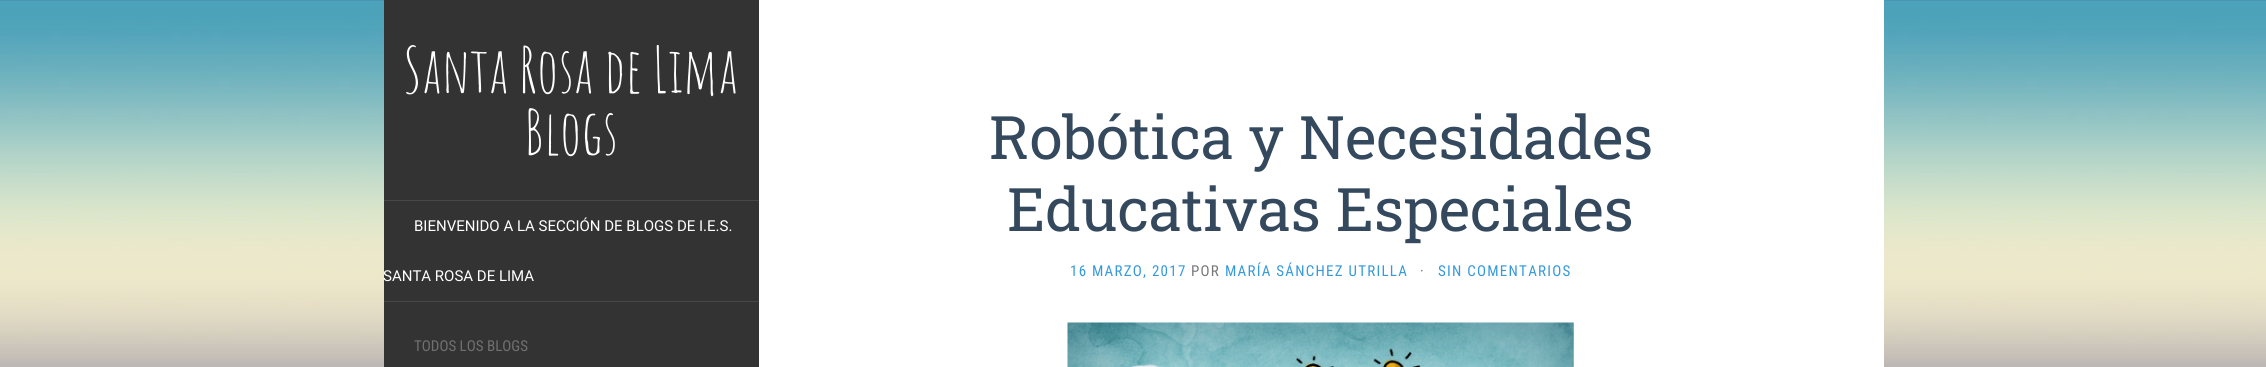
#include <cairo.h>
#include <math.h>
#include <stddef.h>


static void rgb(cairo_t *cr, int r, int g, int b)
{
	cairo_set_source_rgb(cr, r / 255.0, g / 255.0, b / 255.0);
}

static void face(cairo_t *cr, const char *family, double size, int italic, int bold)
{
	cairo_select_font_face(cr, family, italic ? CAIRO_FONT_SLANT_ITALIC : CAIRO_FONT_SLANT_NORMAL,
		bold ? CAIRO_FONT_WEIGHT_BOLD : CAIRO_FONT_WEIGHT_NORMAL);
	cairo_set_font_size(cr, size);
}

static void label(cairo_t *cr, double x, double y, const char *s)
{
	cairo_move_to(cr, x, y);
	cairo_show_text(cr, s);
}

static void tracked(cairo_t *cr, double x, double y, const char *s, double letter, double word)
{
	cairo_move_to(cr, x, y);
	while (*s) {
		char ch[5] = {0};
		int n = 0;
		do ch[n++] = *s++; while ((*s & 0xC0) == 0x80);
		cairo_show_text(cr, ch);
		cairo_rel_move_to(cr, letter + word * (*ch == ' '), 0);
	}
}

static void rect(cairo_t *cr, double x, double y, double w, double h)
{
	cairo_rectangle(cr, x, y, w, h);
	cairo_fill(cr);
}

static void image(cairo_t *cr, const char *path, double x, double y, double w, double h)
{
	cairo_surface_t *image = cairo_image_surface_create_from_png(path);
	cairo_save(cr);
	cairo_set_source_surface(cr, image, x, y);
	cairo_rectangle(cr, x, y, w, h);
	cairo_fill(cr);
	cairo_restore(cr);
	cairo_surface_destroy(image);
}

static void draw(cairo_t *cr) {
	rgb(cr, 255, 255, 255);
	cairo_paint(cr);
	image(cr, "image0.png", 0, 0, 2266, 367);
	rgb(cr, 255, 255, 255);
	rect(cr, 759, 0, 1125, 367);
	rgb(cr, 51, 51, 51);
	rect(cr, 384, 0, 375, 367);
	rgb(cr, 71, 71, 71);
	rect(cr, 384, 200, 375, 1);
	face(cr, "Amatic SC", 62.5, 0, 0);
	rgb(cr, 255, 255, 255);
	label(cr, 403, 93, "Santa Rosa de Lima");
	label(cr, 524, 155, "Blogs");
	rgb(cr, 71, 71, 71);
	rect(cr, 384, 301, 375, 1);
	face(cr, "Roboto", 15, 0, 0);
	rgb(cr, 255, 255, 255);
	label(cr, 414, 231, "BIENVENIDO A LA SECCIÓN DE BLOGS DE I.E.S.");
	label(cr, 383, 281, "SANTA ROSA DE LIMA");
	face(cr, "Roboto Condensed", 15, 0, 0);
	rgb(cr, 112, 112, 112);
	label(cr, 414, 351, "TODOS LOS BLOGS");
	face(cr, "Roboto Slab", 60, 0, 0);
	rgb(cr, 52, 73, 94);
	label(cr, 989, 159, "Robótica y Necesidades");
	label(cr, 1007, 231, "Educativas Especiales");
	face(cr, "Roboto Condensed", 15, 0, 0);
	rgb(cr, 54, 153, 220);
	tracked(cr, 1070, 276, "16 MARZO, 2017", 1.25, 0);
	rgb(cr, 119, 119, 119);
	tracked(cr, 1191, 276, "POR", 1.25, 0);
	rgb(cr, 54, 153, 220);
	tracked(cr, 1225, 276, "MARÍA SÁNCHEZ UTRILLA", 1.25, 0);
	rgb(cr, 119, 119, 119);
	tracked(cr, 1420, 276, "·", 1.25, 0);
	rgb(cr, 54, 153, 220);
	tracked(cr, 1438, 276, "SIN COMENTARIOS", 1.25, 0);
	image(cr, "image1.png", 1067, 322, 507, 45);
}

int main(void) {
	cairo_surface_t *surface = cairo_image_surface_create(CAIRO_FORMAT_RGB24, 2266, 367);
	cairo_t *cr = cairo_create(surface);
	cairo_font_options_t *options = cairo_font_options_create();
	cairo_font_options_set_hint_metrics(options, CAIRO_HINT_METRICS_OFF);
	cairo_font_options_set_hint_style(options, CAIRO_HINT_STYLE_NONE);
	cairo_set_font_options(cr, options);
	cairo_set_miter_limit(cr, 4);
	draw(cr);
	cairo_surface_write_to_png(surface, "render.png");
	cairo_font_options_destroy(options);
	cairo_destroy(cr);
	cairo_surface_destroy(surface);
	return 0;
}
